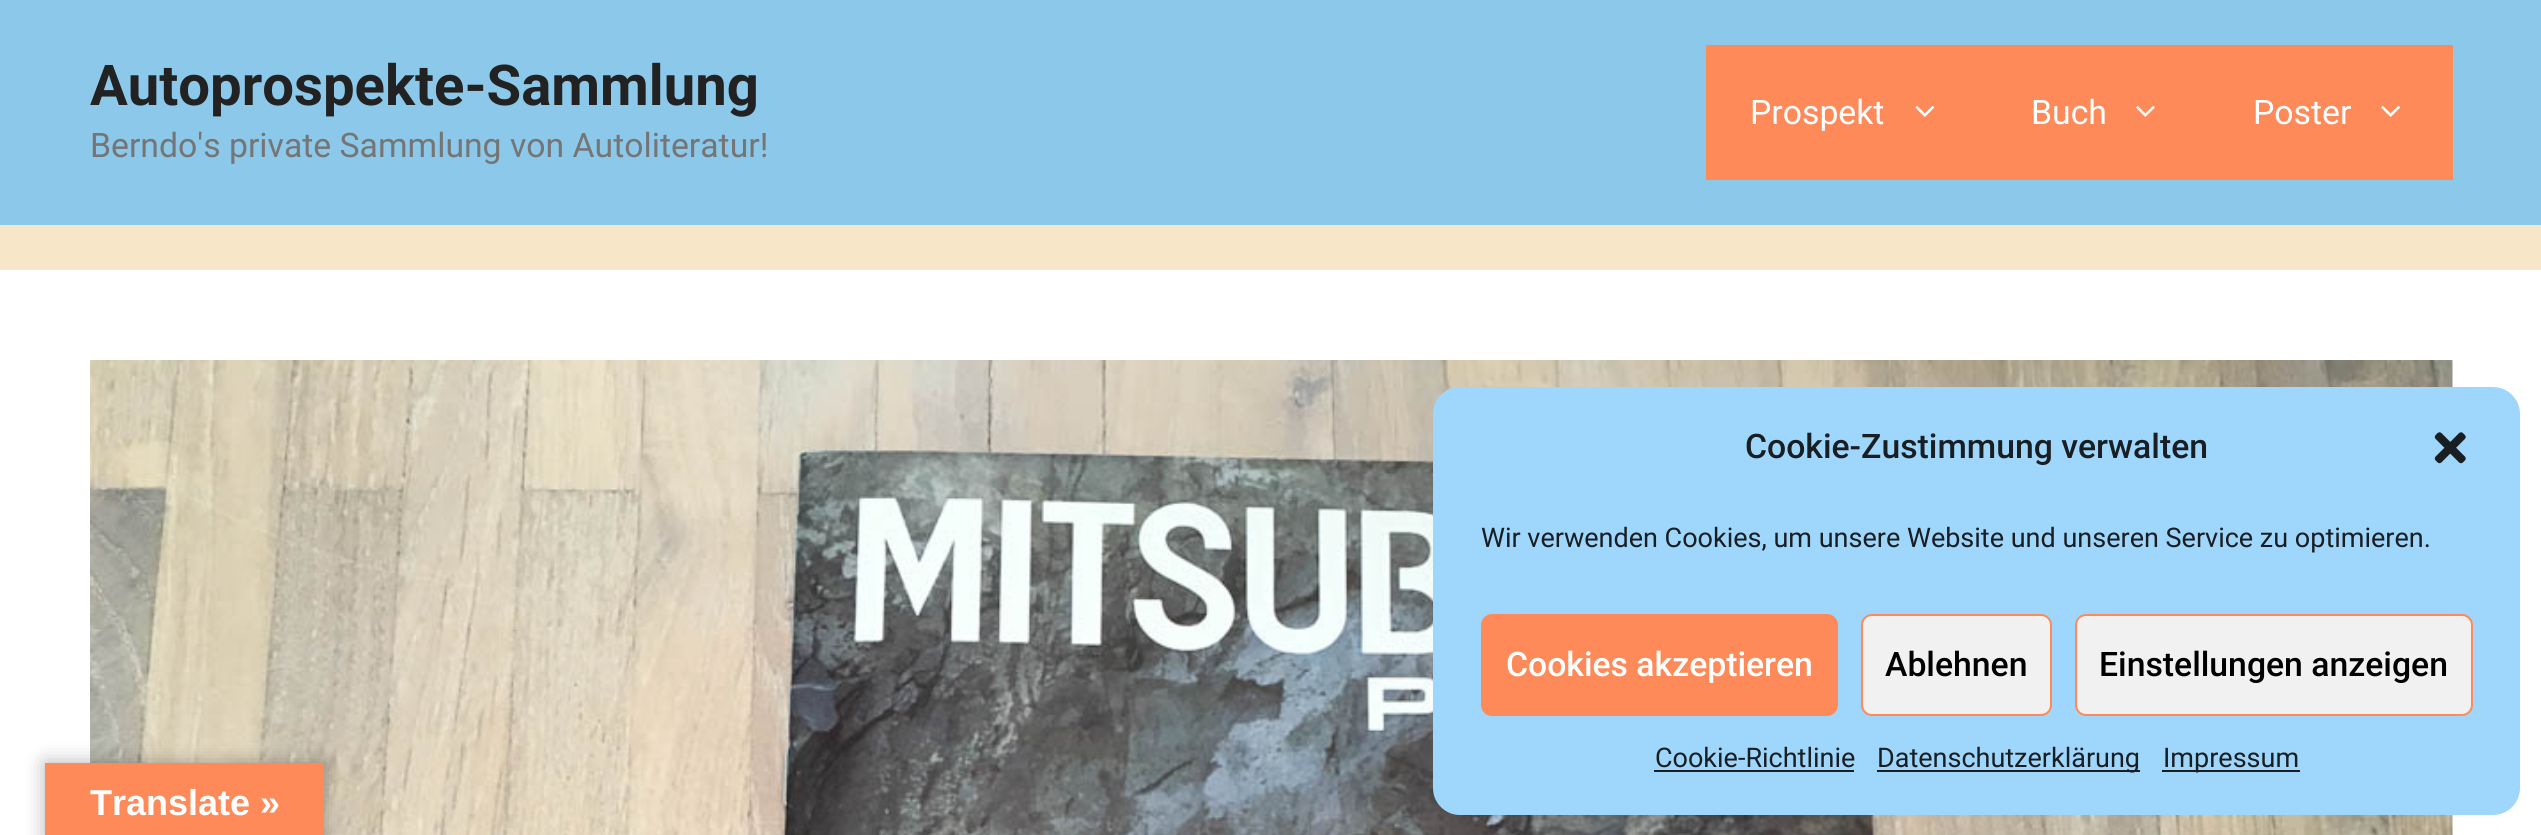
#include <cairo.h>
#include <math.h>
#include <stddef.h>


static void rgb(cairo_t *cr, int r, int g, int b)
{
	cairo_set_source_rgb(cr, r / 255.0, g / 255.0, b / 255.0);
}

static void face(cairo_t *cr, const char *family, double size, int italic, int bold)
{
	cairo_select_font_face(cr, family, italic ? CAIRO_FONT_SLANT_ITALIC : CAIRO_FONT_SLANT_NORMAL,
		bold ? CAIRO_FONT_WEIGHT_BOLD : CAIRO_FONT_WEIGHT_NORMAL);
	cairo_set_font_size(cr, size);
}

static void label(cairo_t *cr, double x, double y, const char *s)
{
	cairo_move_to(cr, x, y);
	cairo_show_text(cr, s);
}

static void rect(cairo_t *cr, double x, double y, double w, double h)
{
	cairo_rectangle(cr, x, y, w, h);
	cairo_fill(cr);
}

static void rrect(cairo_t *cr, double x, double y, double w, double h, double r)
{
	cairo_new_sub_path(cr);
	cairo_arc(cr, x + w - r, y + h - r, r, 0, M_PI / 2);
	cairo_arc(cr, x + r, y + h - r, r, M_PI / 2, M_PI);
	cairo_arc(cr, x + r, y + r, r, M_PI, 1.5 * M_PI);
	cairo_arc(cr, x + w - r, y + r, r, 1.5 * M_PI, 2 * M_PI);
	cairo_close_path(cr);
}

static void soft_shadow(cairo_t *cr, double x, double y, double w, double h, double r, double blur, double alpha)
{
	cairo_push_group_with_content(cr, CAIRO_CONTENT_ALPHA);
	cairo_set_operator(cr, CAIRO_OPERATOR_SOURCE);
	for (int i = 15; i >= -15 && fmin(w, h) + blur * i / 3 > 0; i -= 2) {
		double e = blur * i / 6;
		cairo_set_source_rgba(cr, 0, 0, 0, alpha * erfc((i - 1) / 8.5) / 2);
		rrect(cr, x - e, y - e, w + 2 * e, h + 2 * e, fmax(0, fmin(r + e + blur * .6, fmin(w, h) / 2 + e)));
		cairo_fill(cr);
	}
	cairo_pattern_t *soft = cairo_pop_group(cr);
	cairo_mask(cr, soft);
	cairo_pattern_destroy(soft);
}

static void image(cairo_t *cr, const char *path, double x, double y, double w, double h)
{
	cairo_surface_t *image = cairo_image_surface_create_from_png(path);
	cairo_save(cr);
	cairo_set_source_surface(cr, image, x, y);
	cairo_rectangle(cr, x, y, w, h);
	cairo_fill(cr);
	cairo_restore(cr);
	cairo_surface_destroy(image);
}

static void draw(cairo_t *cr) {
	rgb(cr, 247, 230, 200);
	cairo_paint(cr);
	rgb(cr, 139, 200, 233);
	rect(cr, 0, 0, 2541, 225);
	face(cr, "Roboto", 56.25, 0, 1);
	rgb(cr, 34, 34, 34);
	label(cr, 90, 105, "Autoprospekte-Sammlung");
	face(cr, "Roboto", 33.75, 0, 0);
	rgb(cr, 117, 117, 117);
	label(cr, 90, 157, "Berndo's private Sammlung von Autoliteratur!");
	rgb(cr, 255, 138, 89);
	rect(cr, 1706, 45, 747, 135);
	rgb(cr, 255, 255, 255);
	label(cr, 1750, 124, "Prospekt");
	image(cr, "image0.png", 1915, 106, 20, 11);
	label(cr, 2031, 124, "Buch");
	image(cr, "image1.png", 2136, 106, 19, 11);
	label(cr, 2253, 124, "Poster");
	image(cr, "image2.png", 2381, 106, 19, 11);
	rect(cr, 0, 270, 2541, 565);
	image(cr, "image3.png", 90, 360, 2363, 475);
	rgb(cr, 159, 215, 252);
	rrect(cr, 1434, 388, 1085, 426, 26);
	cairo_fill_preserve(cr);
	cairo_stroke(cr);
	face(cr, "Roboto Medium", 33.75, 0, 0);
	rgb(cr, 25, 30, 35);
	label(cr, 1745, 458, "Cookie-Zustimmung verwalten");
	image(cr, "image4.png", 2434, 432, 32, 32);
	face(cr, "Roboto", 27, 0, 0);
	label(cr, 1481, 547, "Wir verwenden Cookies, um unsere Website und unseren Service zu optimieren.");
	rgb(cr, 255, 138, 89);
	rrect(cr, 1482, 615, 355, 100, 10);
	cairo_fill_preserve(cr);
	cairo_stroke(cr);
	face(cr, "Roboto Medium", 33.75, 0, 0);
	rgb(cr, 255, 255, 255);
	label(cr, 1506, 676, "Cookies akzeptieren");
	rgb(cr, 241, 241, 241);
	rrect(cr, 1862, 615, 189, 100, 10);
	cairo_fill_preserve(cr);
	rgb(cr, 255, 138, 89);
	cairo_stroke(cr);
	rgb(cr, 0, 0, 0);
	label(cr, 1885, 676, "Ablehnen");
	rgb(cr, 241, 241, 241);
	rrect(cr, 2076, 615, 396, 100, 10);
	cairo_fill_preserve(cr);
	rgb(cr, 255, 138, 89);
	cairo_stroke(cr);
	rgb(cr, 0, 0, 0);
	label(cr, 2099, 676, "Einstellungen anzeigen");
	face(cr, "Roboto", 27, 0, 0);
	rgb(cr, 25, 30, 35);
	label(cr, 1655, 767, "Cookie-Richtlinie");
	rect(cr, 1654, 770, 200, 2);
	rect(cr, 1877, 770, 263, 2);
	label(cr, 1877, 767, "Datenschutzerklärung");
	rect(cr, 2162, 770, 138, 2);
	label(cr, 2163, 767, "Impressum");
	rgb(cr, 0, 0, 0);
	soft_shadow(cr, 45, 763, 279, 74, 0, 10, 0.3);
	rgb(cr, 255, 138, 89);
	rect(cr, 45, 763, 279, 72);
	face(cr, "Liberation Sans", 36, 0, 1);
	rgb(cr, 255, 255, 255);
	label(cr, 90, 815, "Translate »");
}

int main(void) {
	cairo_surface_t *surface = cairo_image_surface_create(CAIRO_FORMAT_RGB24, 2541, 835);
	cairo_t *cr = cairo_create(surface);
	cairo_font_options_t *options = cairo_font_options_create();
	cairo_font_options_set_hint_metrics(options, CAIRO_HINT_METRICS_OFF);
	cairo_font_options_set_hint_style(options, CAIRO_HINT_STYLE_NONE);
	cairo_set_font_options(cr, options);
	cairo_set_miter_limit(cr, 4);
	draw(cr);
	cairo_surface_write_to_png(surface, "render.png");
	cairo_font_options_destroy(options);
	cairo_destroy(cr);
	cairo_surface_destroy(surface);
	return 0;
}
